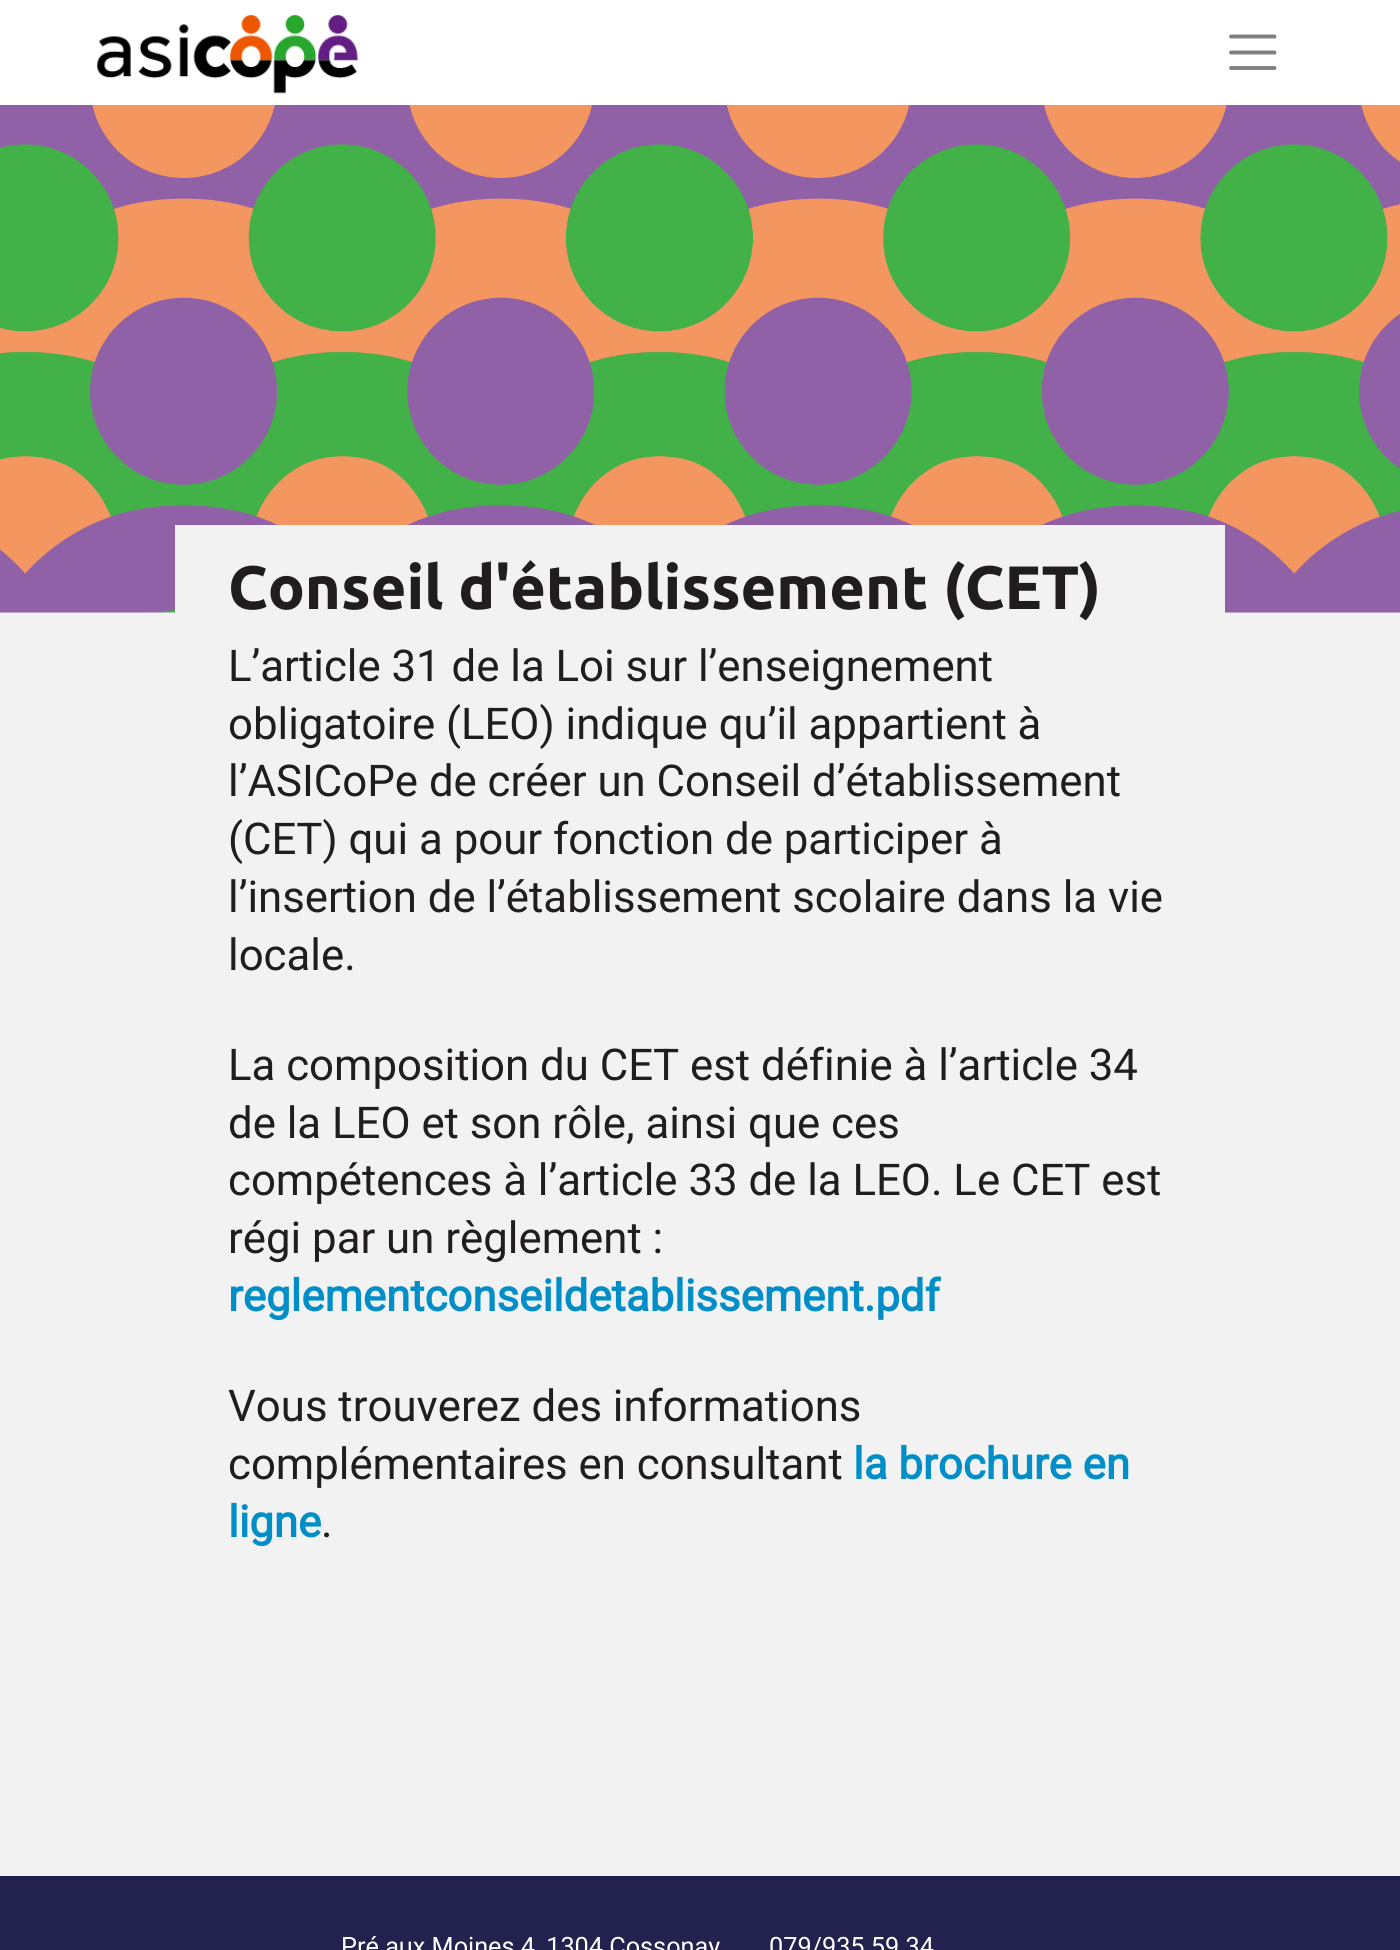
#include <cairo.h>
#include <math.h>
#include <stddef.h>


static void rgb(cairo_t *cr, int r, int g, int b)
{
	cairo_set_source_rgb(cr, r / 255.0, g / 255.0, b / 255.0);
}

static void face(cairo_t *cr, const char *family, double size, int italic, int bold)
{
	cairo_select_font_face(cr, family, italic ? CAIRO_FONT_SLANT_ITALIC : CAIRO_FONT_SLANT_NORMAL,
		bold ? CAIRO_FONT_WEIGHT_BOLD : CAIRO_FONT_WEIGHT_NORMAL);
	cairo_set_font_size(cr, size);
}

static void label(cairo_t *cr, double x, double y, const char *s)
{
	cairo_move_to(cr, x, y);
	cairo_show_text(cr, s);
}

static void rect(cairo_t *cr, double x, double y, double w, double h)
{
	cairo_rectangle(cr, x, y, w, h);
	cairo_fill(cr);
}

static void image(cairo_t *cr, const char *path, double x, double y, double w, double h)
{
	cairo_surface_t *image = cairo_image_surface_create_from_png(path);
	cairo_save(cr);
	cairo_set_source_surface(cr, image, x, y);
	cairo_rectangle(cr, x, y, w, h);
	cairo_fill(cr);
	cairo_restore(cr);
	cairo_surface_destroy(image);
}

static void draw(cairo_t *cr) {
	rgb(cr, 35, 34, 79);
	cairo_paint(cr);
	rgb(cr, 255, 255, 255);
	rect(cr, 0, 0, 1400, 105);
	image(cr, "image0.png", 97, 15, 261, 79);
	cairo_new_path(cr);
	cairo_move_to(cr, 1231, 36.5);
	cairo_line_to(cr, 1274.5, 36.5);
	cairo_move_to(cr, 1231, 52.5);
	cairo_line_to(cr, 1274.5, 52.5);
	cairo_move_to(cr, 1231, 68);
	cairo_line_to(cr, 1274.5, 68);
	rgb(cr, 128, 128, 128);
	cairo_set_line_width(cr, 3.9);
	cairo_set_line_cap(cr, CAIRO_LINE_CAP_ROUND);
	cairo_stroke(cr);
	rgb(cr, 242, 242, 242);
	rect(cr, 0, 612, 1400, 1264);
	image(cr, "image1.png", 0, 105, 1400, 508);
	rect(cr, 175, 525, 1050, 88);
	face(cr, "Ubuntu", 61.25, 0, 1);
	rgb(cr, 31, 29, 29);
	label(cr, 228, 609, "Conseil d'établissement (CET)");
	face(cr, "Roboto", 43.75, 0, 0);
	label(cr, 228, 681, "L’article 31 de la Loi sur l’enseignement");
	label(cr, 228, 739, "obligatoire (LEO) indique qu’il appartient à");
	label(cr, 228, 796, "l’ASICoPe de créer un Conseil d’établissement");
	label(cr, 228, 854, "(CET) qui a pour fonction de participer à");
	label(cr, 228, 912, "l’insertion de l’établissement scolaire dans la vie");
	label(cr, 228, 970, "locale.");
	label(cr, 228, 1080, "La composition du CET est définie à l’article 34");
	label(cr, 228, 1138, "de la LEO et son rôle, ainsi que ces");
	label(cr, 228, 1195, "compétences à l’article 33 de la LEO. Le CET est");
	label(cr, 228, 1253, "régi par un règlement :");
	face(cr, "Roboto", 43.75, 0, 1);
	rgb(cr, 0, 142, 201);
	label(cr, 228, 1311, "reglementconseildetablissement.pdf");
	face(cr, "Roboto", 43.75, 0, 0);
	rgb(cr, 31, 29, 29);
	label(cr, 228, 1421, "Vous trouverez des informations");
	label(cr, 228, 1479, "complémentaires en consultant");
	face(cr, "Roboto", 43.75, 0, 1);
	rgb(cr, 0, 142, 201);
	label(cr, 853, 1479, "la brochure en");
	label(cr, 228, 1537, "ligne");
	face(cr, "Roboto", 43.75, 0, 0);
	rgb(cr, 31, 29, 29);
	label(cr, 321, 1537, ".");
	face(cr, "Roboto", 25.25, 0, 0);
	rgb(cr, 255, 255, 255);
	label(cr, 341, 1955, "Pré aux Moines 4, 1304 Cossonay");
	label(cr, 769, 1955, "079/935 59 34");
}

int main(void) {
	cairo_surface_t *surface = cairo_image_surface_create(CAIRO_FORMAT_RGB24, 1400, 1950);
	cairo_t *cr = cairo_create(surface);
	cairo_font_options_t *options = cairo_font_options_create();
	cairo_font_options_set_hint_metrics(options, CAIRO_HINT_METRICS_OFF);
	cairo_font_options_set_hint_style(options, CAIRO_HINT_STYLE_NONE);
	cairo_set_font_options(cr, options);
	cairo_set_miter_limit(cr, 4);
	draw(cr);
	cairo_surface_write_to_png(surface, "render.png");
	cairo_font_options_destroy(options);
	cairo_destroy(cr);
	cairo_surface_destroy(surface);
	return 0;
}
